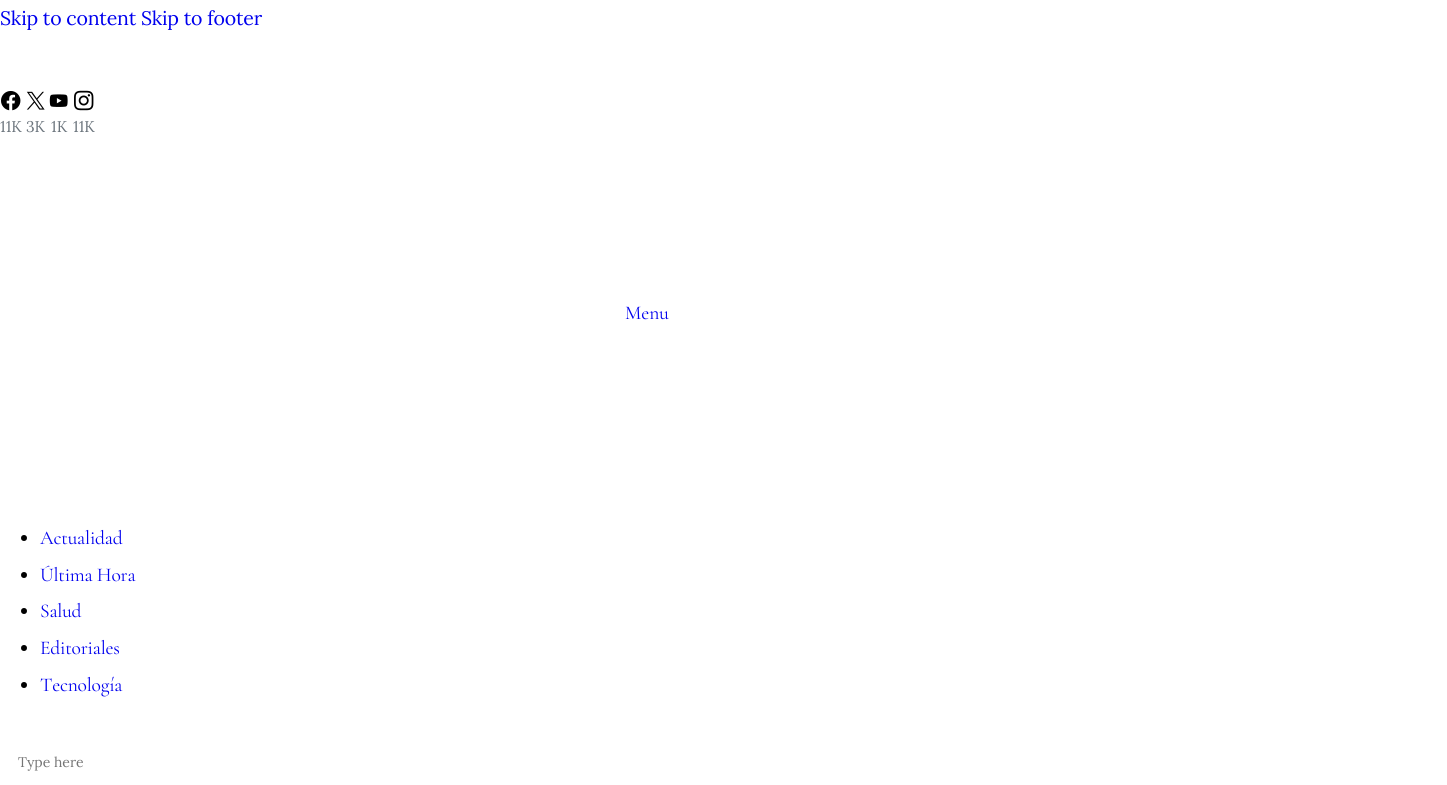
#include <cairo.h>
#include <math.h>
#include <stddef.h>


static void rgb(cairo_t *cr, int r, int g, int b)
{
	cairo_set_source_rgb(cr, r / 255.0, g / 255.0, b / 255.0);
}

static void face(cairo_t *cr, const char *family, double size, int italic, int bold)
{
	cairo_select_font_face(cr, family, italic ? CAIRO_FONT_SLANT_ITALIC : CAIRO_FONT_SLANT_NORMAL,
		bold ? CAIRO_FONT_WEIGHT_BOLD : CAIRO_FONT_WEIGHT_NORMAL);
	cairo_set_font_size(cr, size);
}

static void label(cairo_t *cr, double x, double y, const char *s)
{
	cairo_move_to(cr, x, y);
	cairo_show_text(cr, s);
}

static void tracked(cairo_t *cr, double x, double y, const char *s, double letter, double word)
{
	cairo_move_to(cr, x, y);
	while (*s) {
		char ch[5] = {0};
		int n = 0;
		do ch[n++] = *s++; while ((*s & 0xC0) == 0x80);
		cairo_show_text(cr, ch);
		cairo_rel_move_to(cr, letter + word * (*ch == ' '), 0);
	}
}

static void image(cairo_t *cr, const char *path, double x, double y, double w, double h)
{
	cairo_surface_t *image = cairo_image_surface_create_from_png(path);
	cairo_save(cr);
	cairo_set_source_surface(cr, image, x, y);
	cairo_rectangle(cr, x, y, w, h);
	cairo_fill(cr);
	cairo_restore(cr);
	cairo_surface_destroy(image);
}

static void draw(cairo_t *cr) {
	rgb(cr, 255, 255, 255);
	cairo_paint(cr);
	face(cr, "Lora", 19.5, 0, 0);
	rgb(cr, 0, 0, 238);
	tracked(cr, 0, 25, "Skip to content Skip to footer", -0.2, 0);
	image(cr, "image0.png", 26, 91, 19, 19);
	image(cr, "image1.png", 1, 91, 20, 20);
	face(cr, "Lora", 15.5, 0, 0);
	rgb(cr, 108, 117, 125);
	label(cr, 0, 132, "11K 3K");
	image(cr, "image2.png", 49, 94, 19, 13);
	label(cr, 51, 132, "1K");
	image(cr, "image3.png", 74, 90, 20, 21);
	label(cr, 73, 132, "11K");
	face(cr, "Cormorant Garamond", 19.5, 0, 0);
	rgb(cr, 0, 0, 238);
	label(cr, 625, 319, "Menu");
	rgb(cr, 0, 0, 0);
	cairo_new_path(cr);
	cairo_arc(cr, 24, 538, 3, 0, 2 * M_PI);
	cairo_fill(cr);
	rgb(cr, 0, 0, 238);
	tracked(cr, 40, 544, "Actualidad", -0.2, 0);
	rgb(cr, 0, 0, 0);
	cairo_new_path(cr);
	cairo_arc(cr, 24, 575, 3, 0, 2 * M_PI);
	cairo_fill(cr);
	rgb(cr, 0, 0, 238);
	tracked(cr, 40, 581, "Última Hora", -0.2, 0);
	rgb(cr, 0, 0, 0);
	cairo_new_path(cr);
	cairo_arc(cr, 24, 611, 3, 0, 2 * M_PI);
	cairo_fill(cr);
	rgb(cr, 0, 0, 238);
	tracked(cr, 40, 617, "Salud", -0.2, 0);
	rgb(cr, 0, 0, 0);
	cairo_new_path(cr);
	cairo_arc(cr, 24, 648, 3, 0, 2 * M_PI);
	cairo_fill(cr);
	rgb(cr, 0, 0, 238);
	tracked(cr, 40, 654, "Editoriales", -0.2, 0);
	rgb(cr, 0, 0, 0);
	cairo_new_path(cr);
	cairo_arc(cr, 24, 685, 3, 0, 2 * M_PI);
	cairo_fill(cr);
	rgb(cr, 0, 0, 238);
	tracked(cr, 40, 691, "Tecnología", -0.2, 0);
	cairo_save(cr);
	cairo_rectangle(cr, 18, 753, 66, 18);
	cairo_clip(cr);
	face(cr, "Lora", 14, 0, 0);
	rgb(cr, 117, 117, 117);
	label(cr, 18, 767, "Type here");
	cairo_restore(cr);
}

int main(void) {
	cairo_surface_t *surface = cairo_image_surface_create(CAIRO_FORMAT_RGB24, 1447, 785);
	cairo_t *cr = cairo_create(surface);
	cairo_font_options_t *options = cairo_font_options_create();
	cairo_font_options_set_hint_metrics(options, CAIRO_HINT_METRICS_OFF);
	cairo_font_options_set_hint_style(options, CAIRO_HINT_STYLE_NONE);
	cairo_set_font_options(cr, options);
	cairo_set_miter_limit(cr, 4);
	draw(cr);
	cairo_surface_write_to_png(surface, "render.png");
	cairo_font_options_destroy(options);
	cairo_destroy(cr);
	cairo_surface_destroy(surface);
	return 0;
}
